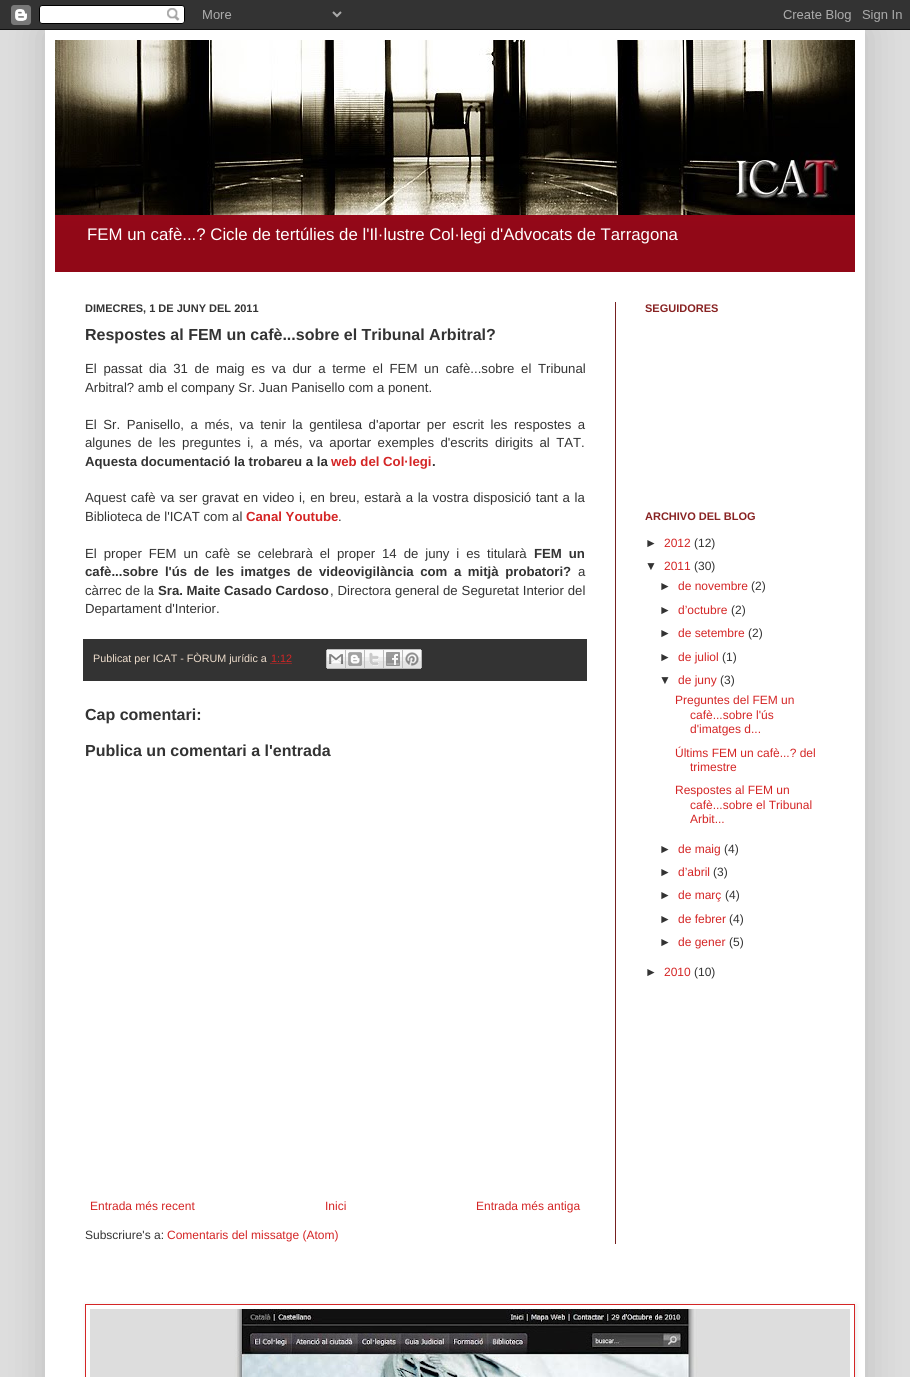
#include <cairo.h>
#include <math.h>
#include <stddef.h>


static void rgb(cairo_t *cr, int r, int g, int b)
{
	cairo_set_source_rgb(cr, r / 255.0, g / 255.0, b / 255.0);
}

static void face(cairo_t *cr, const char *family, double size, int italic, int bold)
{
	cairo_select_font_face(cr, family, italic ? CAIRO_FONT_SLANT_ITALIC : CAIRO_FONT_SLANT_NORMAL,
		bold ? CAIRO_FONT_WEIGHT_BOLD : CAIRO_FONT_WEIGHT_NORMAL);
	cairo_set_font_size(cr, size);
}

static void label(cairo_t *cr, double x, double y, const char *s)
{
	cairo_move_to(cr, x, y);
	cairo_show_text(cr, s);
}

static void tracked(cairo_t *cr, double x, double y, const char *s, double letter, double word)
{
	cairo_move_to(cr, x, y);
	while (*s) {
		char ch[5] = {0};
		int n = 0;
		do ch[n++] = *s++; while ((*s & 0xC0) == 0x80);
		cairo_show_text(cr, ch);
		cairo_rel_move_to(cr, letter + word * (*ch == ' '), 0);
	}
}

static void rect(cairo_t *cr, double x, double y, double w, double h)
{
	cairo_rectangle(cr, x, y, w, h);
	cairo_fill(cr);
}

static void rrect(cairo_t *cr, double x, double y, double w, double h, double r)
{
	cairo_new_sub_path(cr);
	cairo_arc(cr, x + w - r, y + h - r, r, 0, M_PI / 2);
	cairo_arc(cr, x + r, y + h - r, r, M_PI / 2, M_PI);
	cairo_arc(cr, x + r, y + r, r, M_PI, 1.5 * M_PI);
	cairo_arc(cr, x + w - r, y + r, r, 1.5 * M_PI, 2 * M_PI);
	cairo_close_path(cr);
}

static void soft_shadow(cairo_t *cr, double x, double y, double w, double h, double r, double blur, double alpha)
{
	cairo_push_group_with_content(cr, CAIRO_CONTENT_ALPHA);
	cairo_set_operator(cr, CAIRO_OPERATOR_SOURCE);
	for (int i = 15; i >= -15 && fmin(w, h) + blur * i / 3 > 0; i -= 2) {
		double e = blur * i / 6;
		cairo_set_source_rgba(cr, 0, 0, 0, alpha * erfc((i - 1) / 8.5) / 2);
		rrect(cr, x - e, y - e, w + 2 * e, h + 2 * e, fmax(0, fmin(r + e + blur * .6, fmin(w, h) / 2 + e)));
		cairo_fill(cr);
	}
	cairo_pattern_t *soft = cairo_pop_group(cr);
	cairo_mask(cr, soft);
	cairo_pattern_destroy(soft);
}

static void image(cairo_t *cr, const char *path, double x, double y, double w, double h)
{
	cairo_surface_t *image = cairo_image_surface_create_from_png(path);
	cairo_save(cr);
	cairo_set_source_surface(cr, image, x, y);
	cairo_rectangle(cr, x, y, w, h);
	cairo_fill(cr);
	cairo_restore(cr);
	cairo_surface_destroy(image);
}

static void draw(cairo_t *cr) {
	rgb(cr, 221, 221, 221);
	cairo_paint(cr);
	rgb(cr, 0, 0, 0);
	soft_shadow(cr, 45, 30, 820, 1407, 0, 20, 0.15);
	image(cr, "image0.png", 0, 0, 910, 30);
	rgb(cr, 255, 255, 255);
	rect(cr, 45, 30, 820, 1347);
	rgb(cr, 180, 10, 29);
	rect(cr, 55, 215, 800, 57);
	image(cr, "image1.png", 55, 215, 800, 57);
	image(cr, "image2.png", 55, 40, 800, 175);
	face(cr, "Liberation Sans", 16.8, 0, 0);
	rgb(cr, 255, 255, 255);
	label(cr, 87, 240, "FEM un cafè...? Cicle de tertúlies de l'Il·lustre Col·legi d'Advocats de Tarragona");
	rgb(cr, 118, 33, 33);
	rect(cr, 615, 302, 1, 942);
	face(cr, "Liberation Sans", 11, 0, 1);
	rgb(cr, 51, 51, 51);
	label(cr, 85, 312, "DIMECRES, 1 DE JUNY DEL 2011");
	face(cr, "Liberation Sans", 16, 0, 1);
	label(cr, 85, 340, "Respostes al FEM un cafè...sobre el Tribunal Arbitral?");
	face(cr, "Liberation Sans", 13.2, 0, 0);
	tracked(cr, 85, 373, "El passat dia 31 de maig es va dur a terme el FEM un cafè...sobre el Tribunal", 0, 3);
	label(cr, 85, 392, "Arbitral? amb el company Sr. Juan Panisello com a ponent.");
	tracked(cr, 85, 429, "El Sr. Panisello, a més, va tenir la gentilesa d'aportar per escrit les respostes a", 0, 2.9);
	tracked(cr, 85, 447, "algunes de les preguntes i, a més, va aportar exemples d'escrits dirigits al TAT.", 0, 2.75);
	face(cr, "Liberation Sans", 13.2, 0, 1);
	label(cr, 85, 466, "Aquesta documentació la trobareu a la");
	rgb(cr, 212, 37, 37);
	label(cr, 331, 466, "web del Col·legi");
	rgb(cr, 51, 51, 51);
	label(cr, 432, 466, ".");
	face(cr, "Liberation Sans", 13.2, 0, 0);
	tracked(cr, 85, 502, "Aquest cafè va ser gravat en video i, en breu, estarà a la vostra disposició tant a la", 0, 1);
	label(cr, 85, 521, "Biblioteca de l'ICAT com al");
	face(cr, "Liberation Sans", 13.2, 0, 1);
	rgb(cr, 212, 37, 37);
	label(cr, 246, 521, "Canal Youtube");
	face(cr, "Liberation Sans", 13.2, 0, 0);
	rgb(cr, 51, 51, 51);
	label(cr, 338, 521, ".");
	tracked(cr, 85, 558, "El proper FEM un cafè se celebrarà el proper 14 de juny i es titularà", 0, 3.25);
	face(cr, "Liberation Sans", 13.2, 0, 1);
	tracked(cr, 534, 558, "FEM un", 0, 3.25);
	tracked(cr, 85, 576, "cafè...sobre l'ús de les imatges de videovigilància com a mitjà probatori?", 0, 2.9);
	face(cr, "Liberation Sans", 13.2, 0, 0);
	label(cr, 578, 576, "a");
	label(cr, 85, 595, "càrrec de la");
	face(cr, "Liberation Sans", 13.2, 0, 1);
	label(cr, 158, 595, "Sra. Maite Casado Cardoso");
	face(cr, "Liberation Sans", 13.2, 0, 0);
	tracked(cr, 330, 595, ", Directora general de Seguretat Interior del", 0, 0.25);
	label(cr, 85, 613, "Departament d'Interior.");
	rect(cr, 83, 639, 504, 42);
	face(cr, "Liberation Sans", 10.75, 0, 0);
	rgb(cr, 238, 221, 204);
	label(cr, 93, 662, "Publicat per ICAT - FÒRUM jurídic a");
	rgb(cr, 212, 37, 37);
	label(cr, 271, 662, "1:12");
	cairo_new_path(cr);
	cairo_move_to(cr, 270.5, 663.5);
	cairo_line_to(cr, 291.5, 663.5);
	cairo_set_line_width(cr, 1);
	cairo_set_dash(cr, (double[]){1, 1}, 2, 0);
	cairo_stroke(cr);
	image(cr, "image3.png", 326, 649, 20, 20);
	image(cr, "image4.png", 346, 649, 19, 20);
	image(cr, "image5.png", 365, 649, 19, 20);
	image(cr, "image6.png", 384, 649, 19, 20);
	image(cr, "image7.png", 403, 649, 19, 20);
	face(cr, "Liberation Sans", 16, 0, 1);
	rgb(cr, 51, 51, 51);
	label(cr, 85, 720, "Cap comentari:");
	label(cr, 85, 756, "Publica un comentari a l'entrada");
	face(cr, "Liberation Sans", 12, 0, 0);
	rgb(cr, 212, 37, 37);
	label(cr, 90, 1210, "Entrada més recent");
	label(cr, 325, 1210, "Inici");
	label(cr, 476, 1210, "Entrada més antiga");
	rgb(cr, 51, 51, 51);
	label(cr, 85, 1239, "Subscriure's a:");
	rgb(cr, 212, 37, 37);
	label(cr, 167, 1239, "Comentaris del missatge (Atom)");
	face(cr, "Liberation Sans", 11, 0, 1);
	rgb(cr, 136, 34, 34);
	label(cr, 645, 312, "SEGUIDORES");
	label(cr, 645, 520, "ARCHIVO DEL BLOG");
	face(cr, "Liberation Sans", 12, 0, 0);
	rgb(cr, 51, 51, 51);
	label(cr, 645, 547, "►");
	rgb(cr, 212, 37, 37);
	label(cr, 664, 547, "2012");
	rgb(cr, 51, 51, 51);
	label(cr, 694, 547, "(12)");
	label(cr, 645, 570, "▼");
	rgb(cr, 212, 37, 37);
	label(cr, 664, 570, "2011");
	rgb(cr, 51, 51, 51);
	label(cr, 694, 570, "(30)");
	label(cr, 659, 590, "►");
	rgb(cr, 212, 37, 37);
	label(cr, 678, 590, "de novembre");
	rgb(cr, 51, 51, 51);
	label(cr, 751, 590, "(2)");
	label(cr, 659, 614, "►");
	rgb(cr, 212, 37, 37);
	label(cr, 678, 614, "d’octubre");
	rgb(cr, 51, 51, 51);
	label(cr, 731, 614, "(2)");
	label(cr, 659, 637, "►");
	rgb(cr, 212, 37, 37);
	label(cr, 678, 637, "de setembre");
	rgb(cr, 51, 51, 51);
	label(cr, 748, 637, "(2)");
	label(cr, 659, 661, "►");
	rgb(cr, 212, 37, 37);
	label(cr, 678, 661, "de juliol");
	rgb(cr, 51, 51, 51);
	label(cr, 722, 661, "(1)");
	label(cr, 659, 684, "▼");
	rgb(cr, 212, 37, 37);
	label(cr, 678, 684, "de juny");
	rgb(cr, 51, 51, 51);
	label(cr, 720, 684, "(3)");
	rgb(cr, 212, 37, 37);
	label(cr, 675, 704, "Preguntes del FEM un");
	label(cr, 690, 719, "cafè...sobre l'ús");
	label(cr, 690, 733, "d'imatges d...");
	label(cr, 675, 757, "Últims FEM un cafè...? del");
	label(cr, 690, 771, "trimestre");
	label(cr, 675, 794, "Respostes al FEM un");
	label(cr, 690, 809, "cafè...sobre el Tribunal");
	label(cr, 690, 823, "Arbit...");
	rgb(cr, 51, 51, 51);
	label(cr, 659, 853, "►");
	rgb(cr, 212, 37, 37);
	label(cr, 678, 853, "de maig");
	rgb(cr, 51, 51, 51);
	label(cr, 724, 853, "(4)");
	label(cr, 659, 876, "►");
	rgb(cr, 212, 37, 37);
	label(cr, 678, 876, "d’abril");
	rgb(cr, 51, 51, 51);
	label(cr, 713, 876, "(3)");
	label(cr, 659, 899, "►");
	rgb(cr, 212, 37, 37);
	label(cr, 678, 899, "de març");
	rgb(cr, 51, 51, 51);
	label(cr, 725, 899, "(4)");
	label(cr, 659, 923, "►");
	rgb(cr, 212, 37, 37);
	label(cr, 678, 923, "de febrer");
	rgb(cr, 51, 51, 51);
	label(cr, 729, 923, "(4)");
	label(cr, 659, 946, "►");
	rgb(cr, 212, 37, 37);
	label(cr, 678, 946, "de gener");
	rgb(cr, 51, 51, 51);
	label(cr, 729, 946, "(5)");
	label(cr, 645, 976, "►");
	rgb(cr, 212, 37, 37);
	label(cr, 664, 976, "2010");
	rgb(cr, 51, 51, 51);
	label(cr, 694, 976, "(10)");
	cairo_save(cr);
	cairo_set_fill_rule(cr, CAIRO_FILL_RULE_EVEN_ODD);
	cairo_new_path(cr);
	cairo_move_to(cr, 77, 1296);
	cairo_line_to(cr, 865, 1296);
	cairo_line_to(cr, 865, 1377);
	cairo_line_to(cr, 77, 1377);
	cairo_close_path(cr);
	cairo_move_to(cr, 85, 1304);
	cairo_line_to(cr, 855, 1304);
	cairo_line_to(cr, 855, 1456);
	cairo_line_to(cr, 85, 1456);
	cairo_close_path(cr);
	cairo_clip(cr);
	rgb(cr, 0, 0, 0);
	soft_shadow(cr, 86, 1305, 770, 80, 0, 2.5, 0.1);
	cairo_restore(cr);
	cairo_rectangle(cr, 85.5, 1304.5, 769, 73);
	rgb(cr, 212, 37, 37);
	cairo_set_dash(cr, NULL, 0, 0);
	cairo_stroke(cr);
	image(cr, "image8.png", 90, 1309, 760, 68);
}

int main(void) {
	cairo_surface_t *surface = cairo_image_surface_create(CAIRO_FORMAT_RGB24, 910, 1377);
	cairo_t *cr = cairo_create(surface);
	cairo_font_options_t *options = cairo_font_options_create();
	cairo_font_options_set_hint_metrics(options, CAIRO_HINT_METRICS_OFF);
	cairo_font_options_set_hint_style(options, CAIRO_HINT_STYLE_NONE);
	cairo_set_font_options(cr, options);
	cairo_set_miter_limit(cr, 4);
	draw(cr);
	cairo_surface_write_to_png(surface, "render.png");
	cairo_font_options_destroy(options);
	cairo_destroy(cr);
	cairo_surface_destroy(surface);
	return 0;
}
